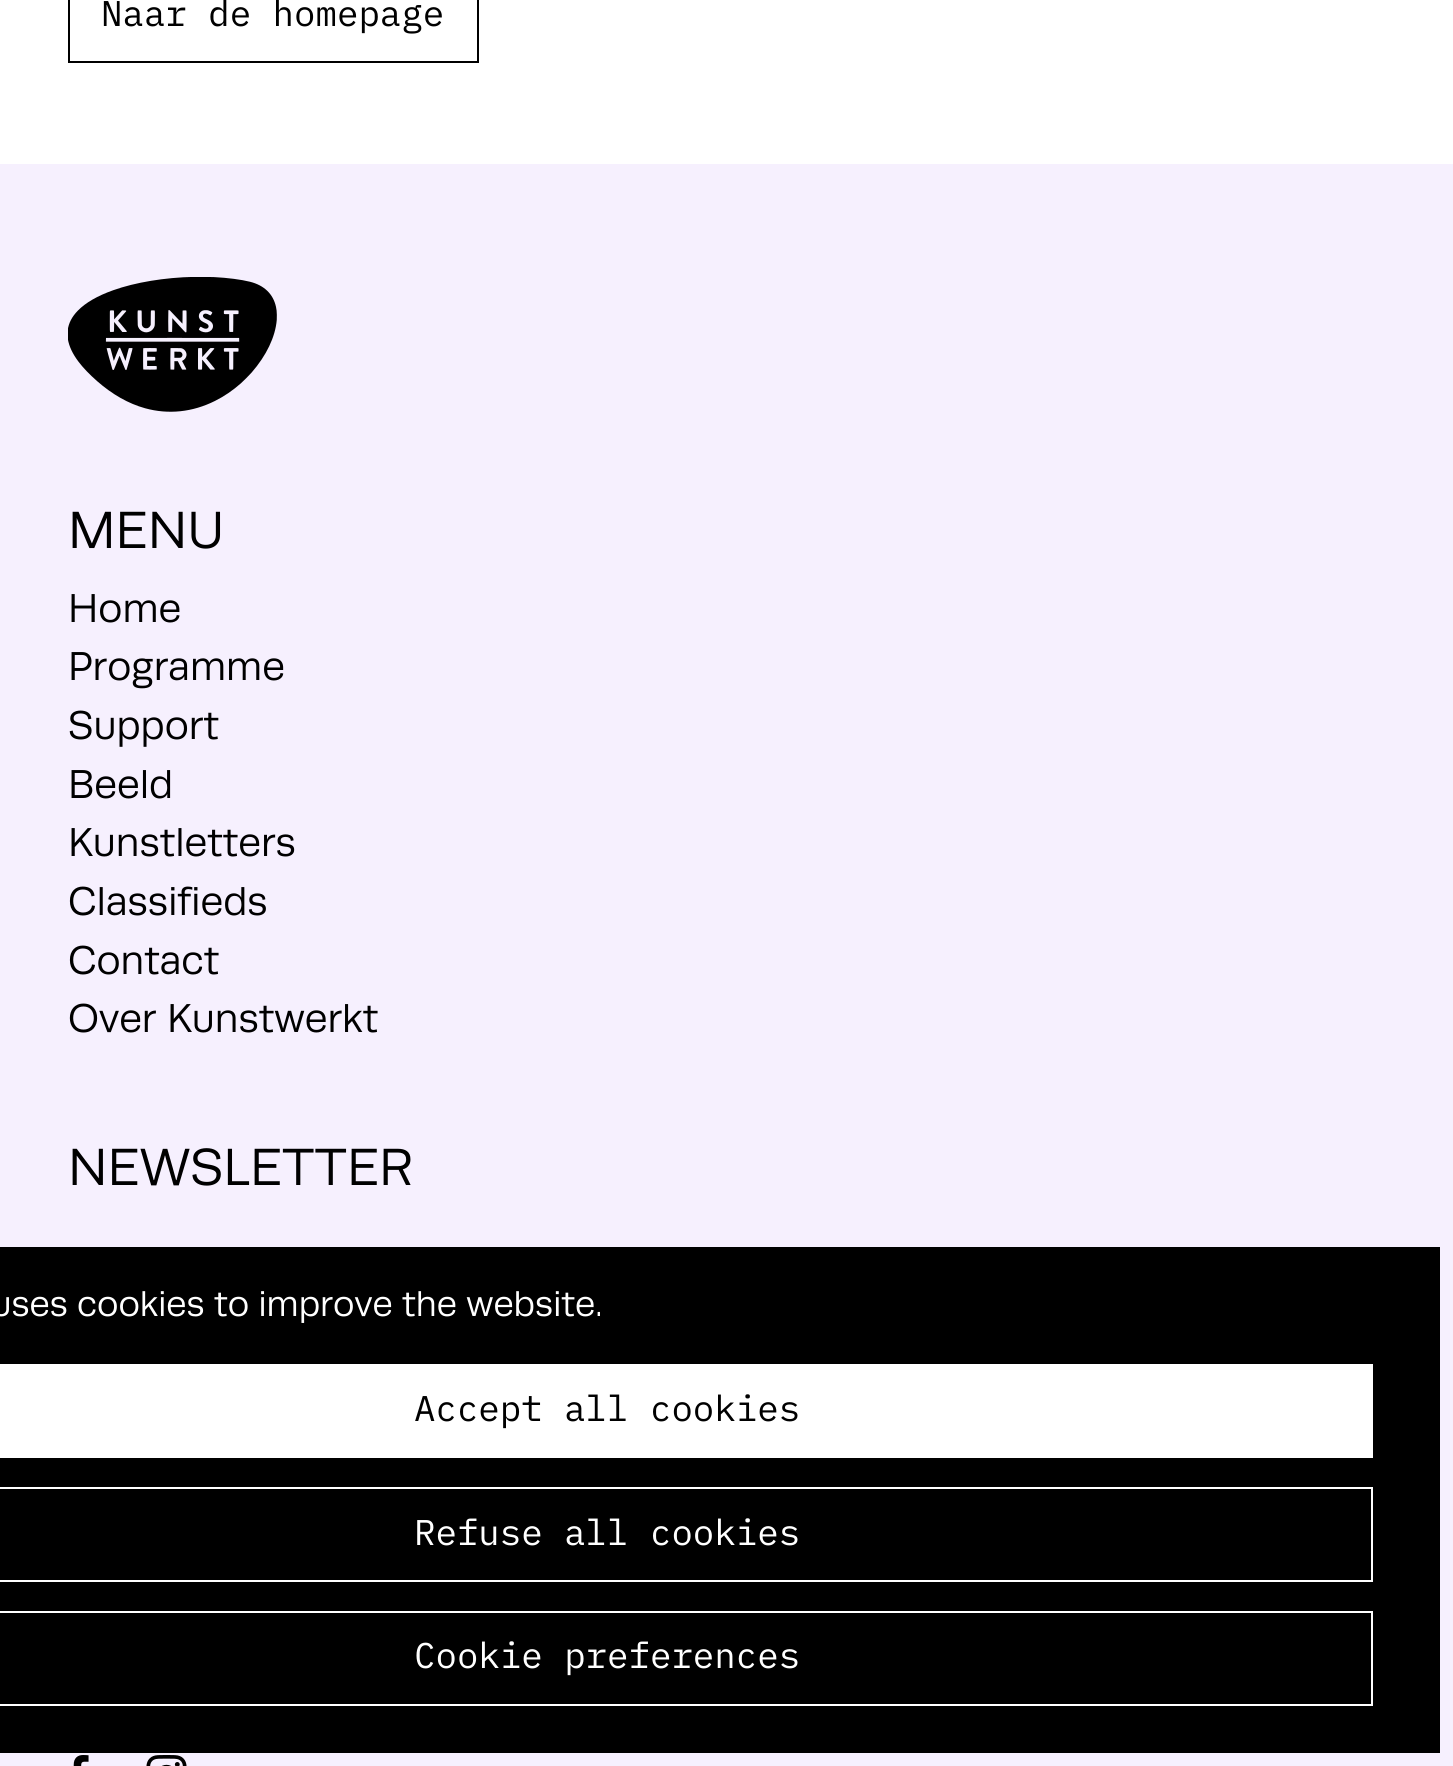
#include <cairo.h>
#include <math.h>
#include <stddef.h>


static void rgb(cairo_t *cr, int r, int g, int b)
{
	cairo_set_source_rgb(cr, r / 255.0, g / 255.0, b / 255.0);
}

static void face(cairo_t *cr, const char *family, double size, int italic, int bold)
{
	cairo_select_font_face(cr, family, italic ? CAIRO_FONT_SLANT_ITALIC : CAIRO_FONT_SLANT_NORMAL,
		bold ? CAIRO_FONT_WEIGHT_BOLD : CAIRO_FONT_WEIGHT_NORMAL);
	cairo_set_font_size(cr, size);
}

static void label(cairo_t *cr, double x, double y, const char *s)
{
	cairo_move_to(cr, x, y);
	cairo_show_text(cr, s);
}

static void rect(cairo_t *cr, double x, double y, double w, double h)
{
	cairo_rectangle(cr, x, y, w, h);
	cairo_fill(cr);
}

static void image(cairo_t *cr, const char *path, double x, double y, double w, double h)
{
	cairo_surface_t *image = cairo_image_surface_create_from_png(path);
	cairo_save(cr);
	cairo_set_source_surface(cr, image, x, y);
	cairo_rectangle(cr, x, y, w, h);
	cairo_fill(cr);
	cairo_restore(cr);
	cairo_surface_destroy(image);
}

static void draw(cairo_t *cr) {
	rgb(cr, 255, 255, 255);
	cairo_paint(cr);
	cairo_rectangle(cr, 69, -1, 409, 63);
	rgb(cr, 0, 0, 0);
	cairo_stroke(cr);
	face(cr, "IBM Plex Mono", 35.75, 0, 0);
	label(cr, 101, 26, "Naar de homepage");
	rgb(cr, 246, 240, 254);
	rect(cr, 0, 164, 1453, 1602);
	image(cr, "image0.png", 68, 277, 209, 135);
	face(cr, "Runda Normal", 52.5, 0, 0);
	rgb(cr, 0, 0, 0);
	label(cr, 68, 548, "MENU");
	face(cr, "Runda Normal", 40.5, 0, 0);
	label(cr, 68, 622, "Home");
	label(cr, 68, 680, "Programme");
	label(cr, 68, 739, "Support");
	label(cr, 68, 798, "Beeld");
	label(cr, 68, 856, "Kunstletters");
	label(cr, 68, 915, "Classifieds");
	label(cr, 68, 974, "Contact");
	label(cr, 68, 1032, "Over Kunstwerkt");
	face(cr, "Runda Normal", 52.5, 0, 0);
	label(cr, 68, 1185, "NEWSLETTER");
	rect(cr, 0, 1247, 1440, 506);
	face(cr, "Runda Normal", 36, 0, 0);
	rgb(cr, 255, 255, 255);
	label(cr, -9, 1316, "uses cookies to improve the website.");
	rect(cr, 0, 1364, 1373, 94);
	face(cr, "IBM Plex Mono", 35.75, 0, 0);
	rgb(cr, 0, 0, 0);
	label(cr, 414, 1421, "Accept all cookies");
	cairo_rectangle(cr, -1, 1488, 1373, 93);
	rgb(cr, 255, 255, 255);
	cairo_stroke(cr);
	label(cr, 414, 1545, "Refuse all cookies");
	cairo_rectangle(cr, -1, 1612, 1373, 93);
	cairo_stroke(cr);
	label(cr, 414, 1668, "Cookie preferences");
	image(cr, "image1.png", 73, 1755, 16, 11);
	image(cr, "image2.png", 146, 1755, 41, 11);
}

int main(void) {
	cairo_surface_t *surface = cairo_image_surface_create(CAIRO_FORMAT_RGB24, 1453, 1766);
	cairo_t *cr = cairo_create(surface);
	cairo_font_options_t *options = cairo_font_options_create();
	cairo_font_options_set_hint_metrics(options, CAIRO_HINT_METRICS_OFF);
	cairo_font_options_set_hint_style(options, CAIRO_HINT_STYLE_NONE);
	cairo_set_font_options(cr, options);
	cairo_set_miter_limit(cr, 4);
	draw(cr);
	cairo_surface_write_to_png(surface, "render.png");
	cairo_font_options_destroy(options);
	cairo_destroy(cr);
	cairo_surface_destroy(surface);
	return 0;
}
